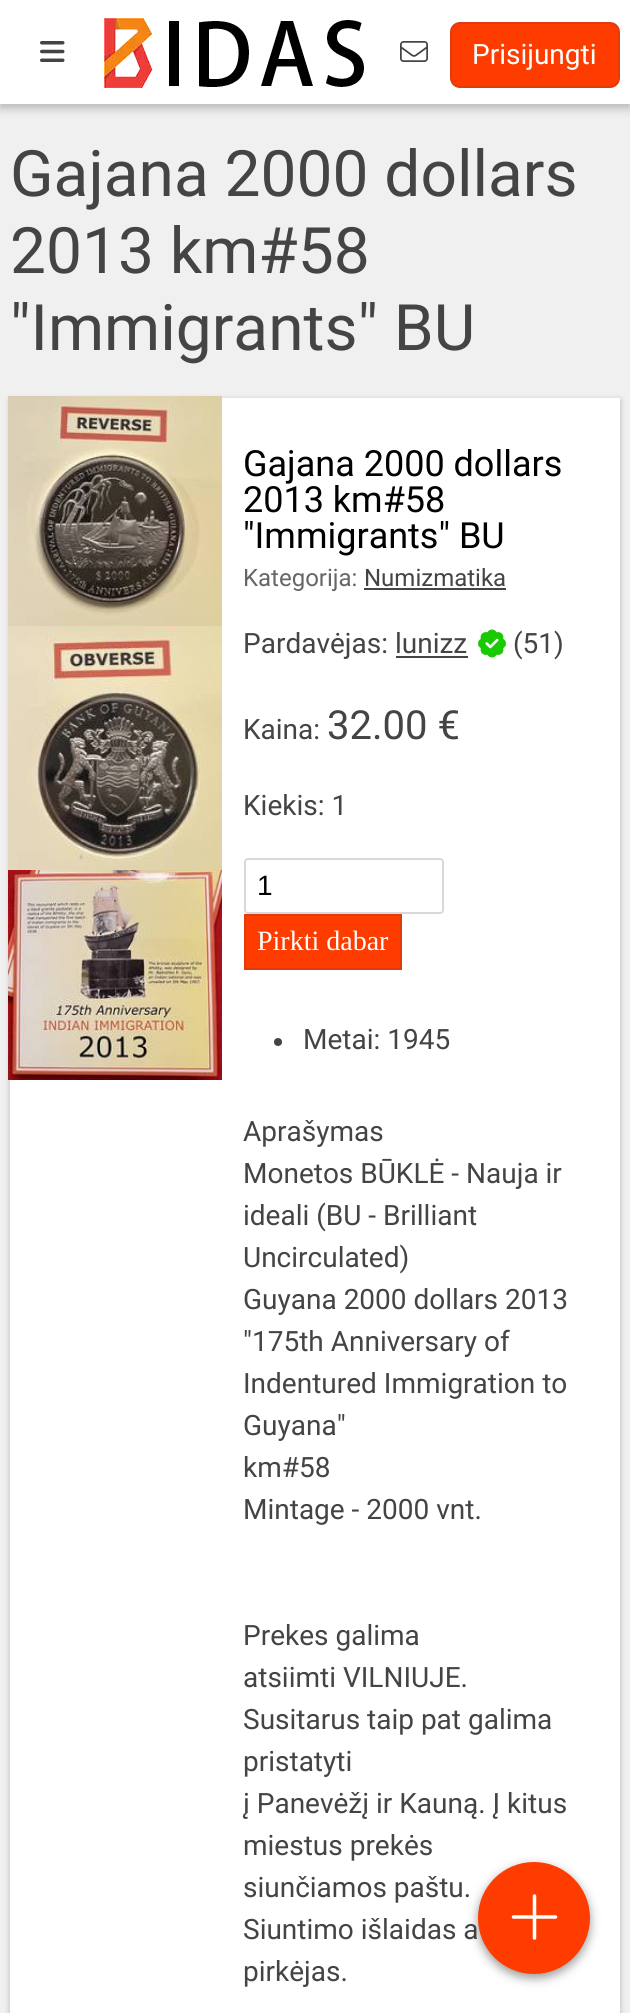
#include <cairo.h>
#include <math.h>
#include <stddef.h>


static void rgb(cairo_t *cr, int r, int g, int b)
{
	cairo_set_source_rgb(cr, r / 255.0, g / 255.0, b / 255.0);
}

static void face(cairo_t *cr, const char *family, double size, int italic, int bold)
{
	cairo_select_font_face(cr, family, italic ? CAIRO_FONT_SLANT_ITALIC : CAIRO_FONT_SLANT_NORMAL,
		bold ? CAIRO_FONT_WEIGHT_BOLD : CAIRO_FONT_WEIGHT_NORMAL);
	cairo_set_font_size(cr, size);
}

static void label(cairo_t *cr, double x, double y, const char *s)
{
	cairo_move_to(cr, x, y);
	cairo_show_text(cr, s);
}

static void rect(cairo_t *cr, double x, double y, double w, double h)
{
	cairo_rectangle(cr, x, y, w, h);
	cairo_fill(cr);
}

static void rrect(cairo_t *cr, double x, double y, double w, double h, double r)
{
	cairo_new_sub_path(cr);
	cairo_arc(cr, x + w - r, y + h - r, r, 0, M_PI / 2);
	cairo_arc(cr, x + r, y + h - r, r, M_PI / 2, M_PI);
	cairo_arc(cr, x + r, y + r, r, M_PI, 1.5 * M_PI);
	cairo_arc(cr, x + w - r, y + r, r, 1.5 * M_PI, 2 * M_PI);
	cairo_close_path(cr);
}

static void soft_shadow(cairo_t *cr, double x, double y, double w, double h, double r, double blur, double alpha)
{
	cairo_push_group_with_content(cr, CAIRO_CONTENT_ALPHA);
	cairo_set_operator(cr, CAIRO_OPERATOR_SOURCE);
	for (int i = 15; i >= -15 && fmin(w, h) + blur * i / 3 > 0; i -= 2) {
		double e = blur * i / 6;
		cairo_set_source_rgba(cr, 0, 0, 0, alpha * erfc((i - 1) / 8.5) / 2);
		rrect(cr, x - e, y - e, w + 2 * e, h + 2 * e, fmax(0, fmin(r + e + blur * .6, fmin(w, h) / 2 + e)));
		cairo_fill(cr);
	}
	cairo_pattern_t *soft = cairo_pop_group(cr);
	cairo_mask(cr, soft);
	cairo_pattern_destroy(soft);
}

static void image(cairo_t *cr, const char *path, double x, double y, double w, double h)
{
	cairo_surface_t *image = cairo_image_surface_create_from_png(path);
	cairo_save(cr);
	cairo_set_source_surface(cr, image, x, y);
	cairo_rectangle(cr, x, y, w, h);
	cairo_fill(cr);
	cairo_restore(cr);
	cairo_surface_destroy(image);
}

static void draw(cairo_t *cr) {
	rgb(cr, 240, 240, 240);
	cairo_paint(cr);
	rgb(cr, 0, 0, 0);
	soft_shadow(cr, 0, 4, 630, 104, 0, 5, 0.25);
	rgb(cr, 255, 255, 255);
	rect(cr, 0, 0, 630, 104);
	image(cr, "image0.png", 40, 41, 25, 21);
	image(cr, "image1.png", 104, 18, 260, 70);
	image(cr, "image2.png", 400, 41, 28, 21);
	rgb(cr, 255, 60, 0);
	rrect(cr, 451, 23, 168, 64, 9);
	cairo_fill_preserve(cr);
	rgb(cr, 222, 61, 11);
	cairo_stroke(cr);
	face(cr, "Roboto", 28, 0, 0);
	rgb(cr, 255, 255, 255);
	label(cr, 472, 64, "Prisijungti");
	face(cr, "Roboto", 64, 0, 0);
	rgb(cr, 68, 68, 68);
	label(cr, 10, 196, "Gajana 2000 dollars");
	label(cr, 10, 273, "2013 km#58");
	label(cr, 10, 350, "\"Immigrants\" BU");
	rgb(cr, 0, 0, 0);
	soft_shadow(cr, 10, 400, 610, 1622, 0, 3, 0.25);
	rgb(cr, 255, 255, 255);
	rect(cr, 10, 398, 610, 1615);
	image(cr, "image3.png", 8, 396, 214, 230);
	image(cr, "image4.png", 8, 626, 214, 244);
	image(cr, "image5.png", 8, 870, 214, 210);
	face(cr, "Roboto", 36, 0, 0);
	rgb(cr, 0, 0, 0);
	label(cr, 243, 476, "Gajana 2000 dollars");
	label(cr, 243, 512, "2013 km#58");
	label(cr, 243, 548, "\"Immigrants\" BU");
	face(cr, "Roboto", 24, 0, 0);
	rgb(cr, 102, 102, 102);
	label(cr, 243, 586, "Kategorija:");
	rgb(cr, 68, 68, 68);
	label(cr, 364, 586, "Numizmatika");
	rect(cr, 364, 588, 142, 2);
	face(cr, "Roboto", 28, 0, 0);
	label(cr, 243, 653, "Pardavėjas: lunizz");
	image(cr, "image6.png", 478, 629, 28, 29);
	label(cr, 513, 653, "(51)");
	rect(cr, 396, 656, 72, 2);
	label(cr, 243, 739, "Kaina:");
	face(cr, "Roboto", 40, 0, 0);
	label(cr, 327, 739, "32.00 €");
	face(cr, "Roboto", 28, 0, 0);
	label(cr, 243, 815, "Kiekis: 1");
	rrect(cr, 245, 859, 198, 54, 3);
	rgb(cr, 217, 217, 217);
	cairo_stroke(cr);
	face(cr, "Liberation Sans", 28, 0, 0);
	rgb(cr, 0, 0, 0);
	label(cr, 257, 895, "1");
	rgb(cr, 255, 60, 0);
	cairo_rectangle(cr, 245, 915, 156, 54);
	cairo_fill_preserve(cr);
	rgb(cr, 222, 61, 11);
	cairo_stroke(cr);
	face(cr, "Liberation Serif", 28, 0, 0);
	rgb(cr, 255, 255, 255);
	label(cr, 257, 950, "Pirkti dabar");
	rgb(cr, 68, 68, 68);
	cairo_new_path(cr);
	cairo_arc(cr, 278, 1042, 4, 0, 2 * M_PI);
	cairo_fill(cr);
	face(cr, "Roboto", 28, 0, 0);
	label(cr, 303, 1049, "Metai: 1945");
	label(cr, 243, 1141, "Aprašymas");
	label(cr, 243, 1183, "Monetos BŪKLĖ - Nauja ir");
	label(cr, 243, 1225, "ideali (BU - Brilliant");
	label(cr, 243, 1267, "Uncirculated)");
	label(cr, 243, 1309, "Guyana 2000 dollars 2013");
	label(cr, 243, 1351, "\"175th Anniversary of");
	label(cr, 243, 1393, "Indentured Immigration to");
	label(cr, 243, 1435, "Guyana\"");
	label(cr, 243, 1477, "km#58");
	label(cr, 243, 1519, "Mintage - 2000 vnt.");
	label(cr, 243, 1645, "Prekes galima");
	label(cr, 243, 1687, "atsiimti VILNIUJE.");
	label(cr, 243, 1729, "Susitarus taip pat galima");
	label(cr, 243, 1771, "pristatyti");
	label(cr, 243, 1813, "į Panevėžį ir Kauną. Į kitus");
	label(cr, 243, 1855, "miestus prekės");
	label(cr, 243, 1897, "siunčiamos paštu.");
	label(cr, 243, 1939, "Siuntimo išlaidas a");
	label(cr, 243, 1981, "pirkėjas.");
	rgb(cr, 50, 50, 50);
	soft_shadow(cr, 478, 1866, 112, 112, 56, 5, 0.5);
	rgb(cr, 255, 60, 0);
	cairo_arc(cr, 534, 1918, 56, 0, 2 * M_PI);
	cairo_fill(cr);
	image(cr, "image7.png", 511, 1894, 47, 46);
}

int main(void) {
	cairo_surface_t *surface = cairo_image_surface_create(CAIRO_FORMAT_RGB24, 630, 2013);
	cairo_t *cr = cairo_create(surface);
	cairo_font_options_t *options = cairo_font_options_create();
	cairo_font_options_set_hint_metrics(options, CAIRO_HINT_METRICS_OFF);
	cairo_font_options_set_hint_style(options, CAIRO_HINT_STYLE_NONE);
	cairo_set_font_options(cr, options);
	cairo_set_miter_limit(cr, 4);
	draw(cr);
	cairo_surface_write_to_png(surface, "render.png");
	cairo_font_options_destroy(options);
	cairo_destroy(cr);
	cairo_surface_destroy(surface);
	return 0;
}
